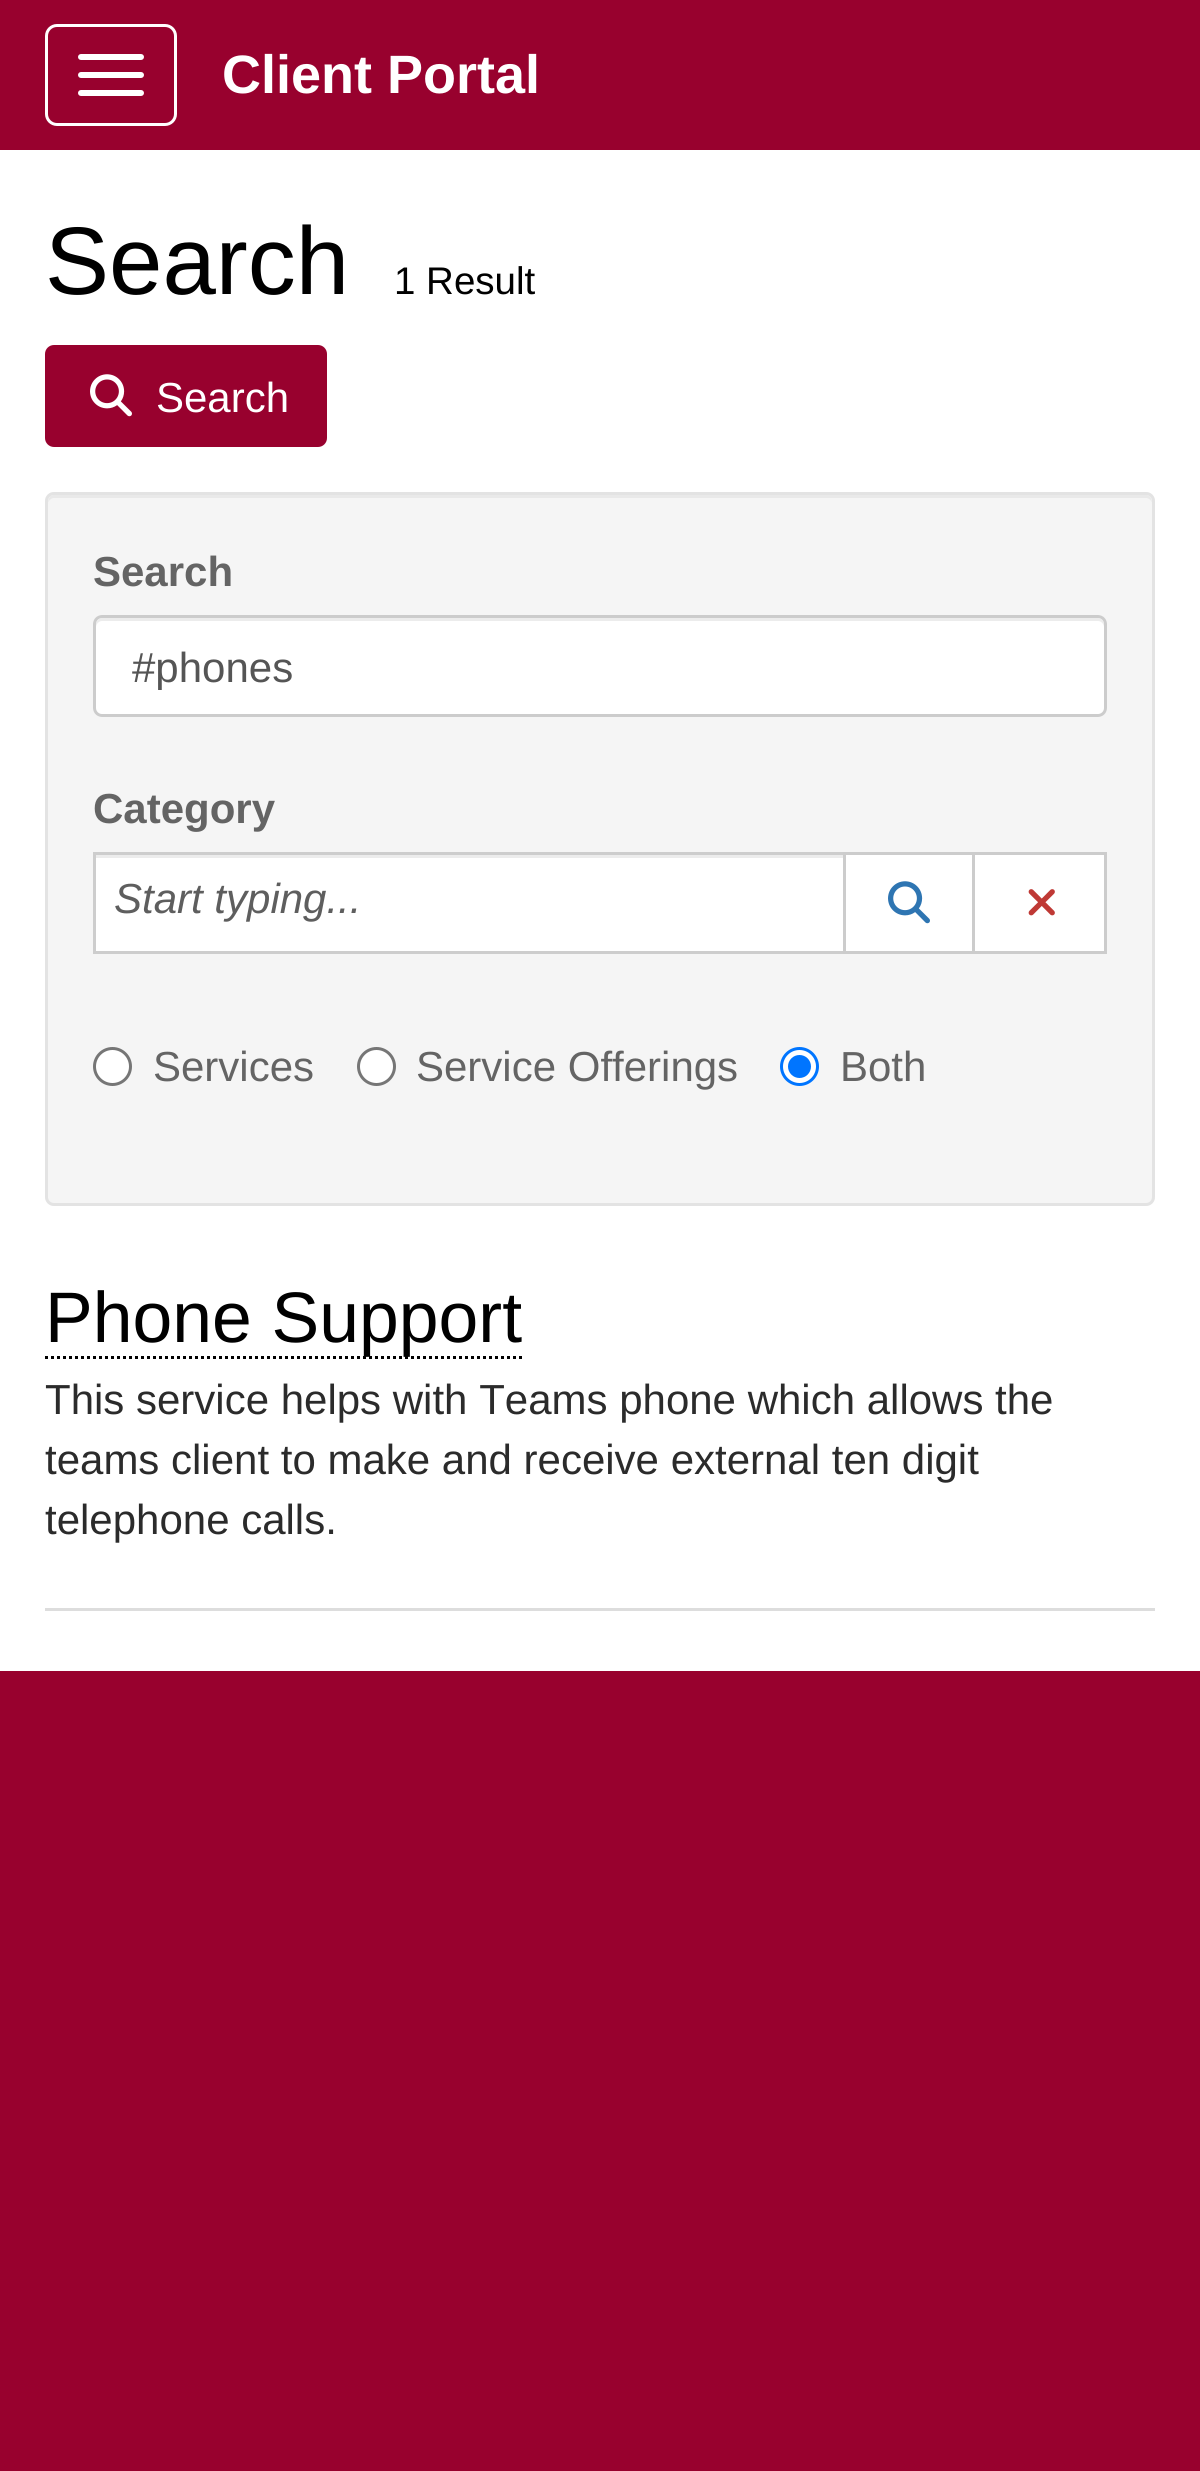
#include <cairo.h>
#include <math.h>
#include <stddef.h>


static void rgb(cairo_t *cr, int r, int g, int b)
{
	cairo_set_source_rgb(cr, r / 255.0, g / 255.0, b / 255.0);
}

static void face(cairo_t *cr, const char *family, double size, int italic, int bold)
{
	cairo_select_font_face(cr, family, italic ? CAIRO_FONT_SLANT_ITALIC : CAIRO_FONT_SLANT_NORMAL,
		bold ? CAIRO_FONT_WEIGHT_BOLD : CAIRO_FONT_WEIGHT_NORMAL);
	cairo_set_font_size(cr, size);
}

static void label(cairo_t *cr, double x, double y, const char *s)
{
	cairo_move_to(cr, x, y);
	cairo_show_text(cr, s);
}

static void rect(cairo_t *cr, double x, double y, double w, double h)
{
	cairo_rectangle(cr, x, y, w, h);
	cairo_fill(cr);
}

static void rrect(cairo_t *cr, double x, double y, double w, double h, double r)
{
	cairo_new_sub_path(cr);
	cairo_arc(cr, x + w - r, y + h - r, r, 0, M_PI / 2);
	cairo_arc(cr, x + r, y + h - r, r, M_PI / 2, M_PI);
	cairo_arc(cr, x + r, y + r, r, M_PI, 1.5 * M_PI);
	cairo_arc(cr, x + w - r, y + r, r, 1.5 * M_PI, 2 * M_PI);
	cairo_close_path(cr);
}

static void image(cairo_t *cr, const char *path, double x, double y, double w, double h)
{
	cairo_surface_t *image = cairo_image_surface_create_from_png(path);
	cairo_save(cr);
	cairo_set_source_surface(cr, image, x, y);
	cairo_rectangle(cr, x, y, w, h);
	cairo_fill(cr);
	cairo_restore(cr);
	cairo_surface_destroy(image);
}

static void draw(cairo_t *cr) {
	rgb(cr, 255, 255, 255);
	cairo_paint(cr);
	rgb(cr, 152, 1, 46);
	rect(cr, 0, 0, 1200, 150);
	rrect(cr, 46.5, 25.5, 129, 99, 10.5);
	rgb(cr, 255, 255, 255);
	cairo_set_line_width(cr, 3);
	cairo_stroke(cr);
	rrect(cr, 78, 54, 66, 6, 3);
	cairo_fill(cr);
	rrect(cr, 78, 72, 66, 6, 3);
	cairo_fill(cr);
	rrect(cr, 78, 90, 66, 6, 3);
	cairo_fill(cr);
	face(cr, "Liberation Sans", 54, 0, 1);
	label(cr, 222, 93, "Client Portal");
	face(cr, "Liberation Sans", 96, 0, 0);
	rgb(cr, 0, 0, 0);
	label(cr, 45, 294, "Search");
	face(cr, "Liberation Sans", 38.5, 0, 0);
	label(cr, 394, 294, "1 Result");
	rgb(cr, 152, 1, 46);
	rrect(cr, 46.5, 346.5, 279, 99, 7.5);
	cairo_fill_preserve(cr);
	cairo_stroke(cr);
	image(cr, "image0.png", 90, 374, 42, 43);
	face(cr, "Liberation Sans", 42, 0, 0);
	rgb(cr, 255, 255, 255);
	label(cr, 156, 412, "Search");
	rgb(cr, 245, 245, 245);
	rrect(cr, 45, 492, 1110, 714, 9);
	cairo_fill(cr);
	rgb(cr, 233, 233, 233);
	cairo_new_path(cr);
	cairo_move_to(cr, 54, 498);
	cairo_line_to(cr, 1146, 498);
	cairo_curve_to(cr, 1149, 498, 1152, 501, 1152, 504);
	cairo_curve_to(cr, 1152, 500, 1151, 495, 1146, 495);
	cairo_line_to(cr, 54, 495);
	cairo_curve_to(cr, 49, 495, 48, 500, 48, 504);
	cairo_curve_to(cr, 48, 501, 51, 498, 54, 498);
	cairo_close_path(cr);
	cairo_fill(cr);
	rrect(cr, 46.5, 493.5, 1107, 711, 7.5);
	rgb(cr, 227, 227, 227);
	cairo_stroke(cr);
	face(cr, "Liberation Sans", 42, 0, 1);
	rgb(cr, 100, 100, 100);
	label(cr, 93, 586, "Search");
	rgb(cr, 255, 255, 255);
	rrect(cr, 93, 615, 1014, 102, 9);
	cairo_fill(cr);
	rgb(cr, 236, 236, 236);
	cairo_new_path(cr);
	cairo_move_to(cr, 102, 621);
	cairo_line_to(cr, 1098, 621);
	cairo_curve_to(cr, 1101, 621, 1104, 624, 1104, 627);
	cairo_line_to(cr, 1104, 624);
	cairo_curve_to(cr, 1104, 621, 1101, 618, 1098, 618);
	cairo_line_to(cr, 102, 618);
	cairo_curve_to(cr, 99, 618, 96, 621, 96, 624);
	cairo_line_to(cr, 96, 627);
	cairo_curve_to(cr, 96, 624, 99, 621, 102, 621);
	cairo_close_path(cr);
	cairo_fill(cr);
	rrect(cr, 94.5, 616.5, 1011, 99, 7.5);
	rgb(cr, 204, 204, 204);
	cairo_stroke(cr);
	cairo_save(cr);
	cairo_rectangle(cr, 132, 642, 936, 48);
	cairo_clip(cr);
	face(cr, "Liberation Sans", 42, 0, 0);
	rgb(cr, 85, 85, 85);
	label(cr, 132, 682, "#phones");
	cairo_restore(cr);
	rgb(cr, 100, 100, 100);
	label(cr, 93, 823, "Category");
	rgb(cr, 255, 255, 255);
	rect(cr, 96, 858, 747, 93);
	rgb(cr, 236, 236, 236);
	rect(cr, 96, 855, 747, 3);
	cairo_rectangle(cr, 94.5, 853.5, 750, 99);
	rgb(cr, 205, 205, 205);
	cairo_stroke(cr);
	face(cr, "Liberation Sans", 42, 1, 0);
	rgb(cr, 94, 94, 94);
	label(cr, 114, 913, "Start typing...");
	rgb(cr, 255, 255, 255);
	cairo_rectangle(cr, 844.5, 853.5, 129, 99);
	cairo_fill_preserve(cr);
	rgb(cr, 204, 204, 204);
	cairo_stroke(cr);
	image(cr, "image1.png", 888, 881, 42, 43);
	rgb(cr, 255, 255, 255);
	cairo_rectangle(cr, 973.5, 853.5, 132, 99);
	cairo_fill_preserve(cr);
	rgb(cr, 204, 204, 204);
	cairo_stroke(cr);
	image(cr, "image2.png", 1028, 889, 27, 27);
	rgb(cr, 255, 255, 255);
	cairo_arc(cr, 112.5, 1066.5, 18, 0, 2 * M_PI);
	cairo_fill_preserve(cr);
	rgb(cr, 118, 118, 118);
	cairo_stroke(cr);
	face(cr, "Liberation Sans", 42, 0, 0);
	rgb(cr, 100, 100, 100);
	label(cr, 153, 1081, "Services");
	rgb(cr, 255, 255, 255);
	cairo_new_path(cr);
	cairo_arc(cr, 376.5, 1066.5, 18, 0, 2 * M_PI);
	cairo_fill_preserve(cr);
	rgb(cr, 118, 118, 118);
	cairo_stroke(cr);
	rgb(cr, 100, 100, 100);
	label(cr, 416, 1081, "Service Offerings");
	rgb(cr, 255, 255, 255);
	cairo_new_path(cr);
	cairo_arc(cr, 799.5, 1066.5, 18, 0, 2 * M_PI);
	cairo_fill_preserve(cr);
	rgb(cr, 0, 117, 255);
	cairo_stroke(cr);
	cairo_arc(cr, 799.5, 1066.5, 11.5, 0, 2 * M_PI);
	cairo_fill(cr);
	rgb(cr, 100, 100, 100);
	label(cr, 840, 1081, "Both");
	cairo_new_path(cr);
	cairo_move_to(cr, 45, 1357.5);
	cairo_line_to(cr, 522, 1357.5);
	rgb(cr, 0, 0, 0);
	cairo_set_dash(cr, (double[]){3, 3}, 2, 0);
	cairo_stroke(cr);
	face(cr, "Liberation Sans", 71.5, 0, 0);
	label(cr, 45, 1342, "Phone Support");
	face(cr, "Liberation Sans", 42, 0, 0);
	rgb(cr, 43, 43, 43);
	label(cr, 45, 1414, "This service helps with Teams phone which allows the");
	label(cr, 45, 1474, "teams client to make and receive external ten digit");
	label(cr, 45, 1534, "telephone calls.");
	rgb(cr, 221, 221, 221);
	rect(cr, 45, 1608, 1110, 3);
	rgb(cr, 152, 1, 46);
	rect(cr, 0, 1671, 1200, 800);
}

int main(void) {
	cairo_surface_t *surface = cairo_image_surface_create(CAIRO_FORMAT_RGB24, 1200, 2471);
	cairo_t *cr = cairo_create(surface);
	cairo_font_options_t *options = cairo_font_options_create();
	cairo_font_options_set_hint_metrics(options, CAIRO_HINT_METRICS_OFF);
	cairo_font_options_set_hint_style(options, CAIRO_HINT_STYLE_NONE);
	cairo_set_font_options(cr, options);
	cairo_set_miter_limit(cr, 4);
	draw(cr);
	cairo_surface_write_to_png(surface, "render.png");
	cairo_font_options_destroy(options);
	cairo_destroy(cr);
	cairo_surface_destroy(surface);
	return 0;
}
